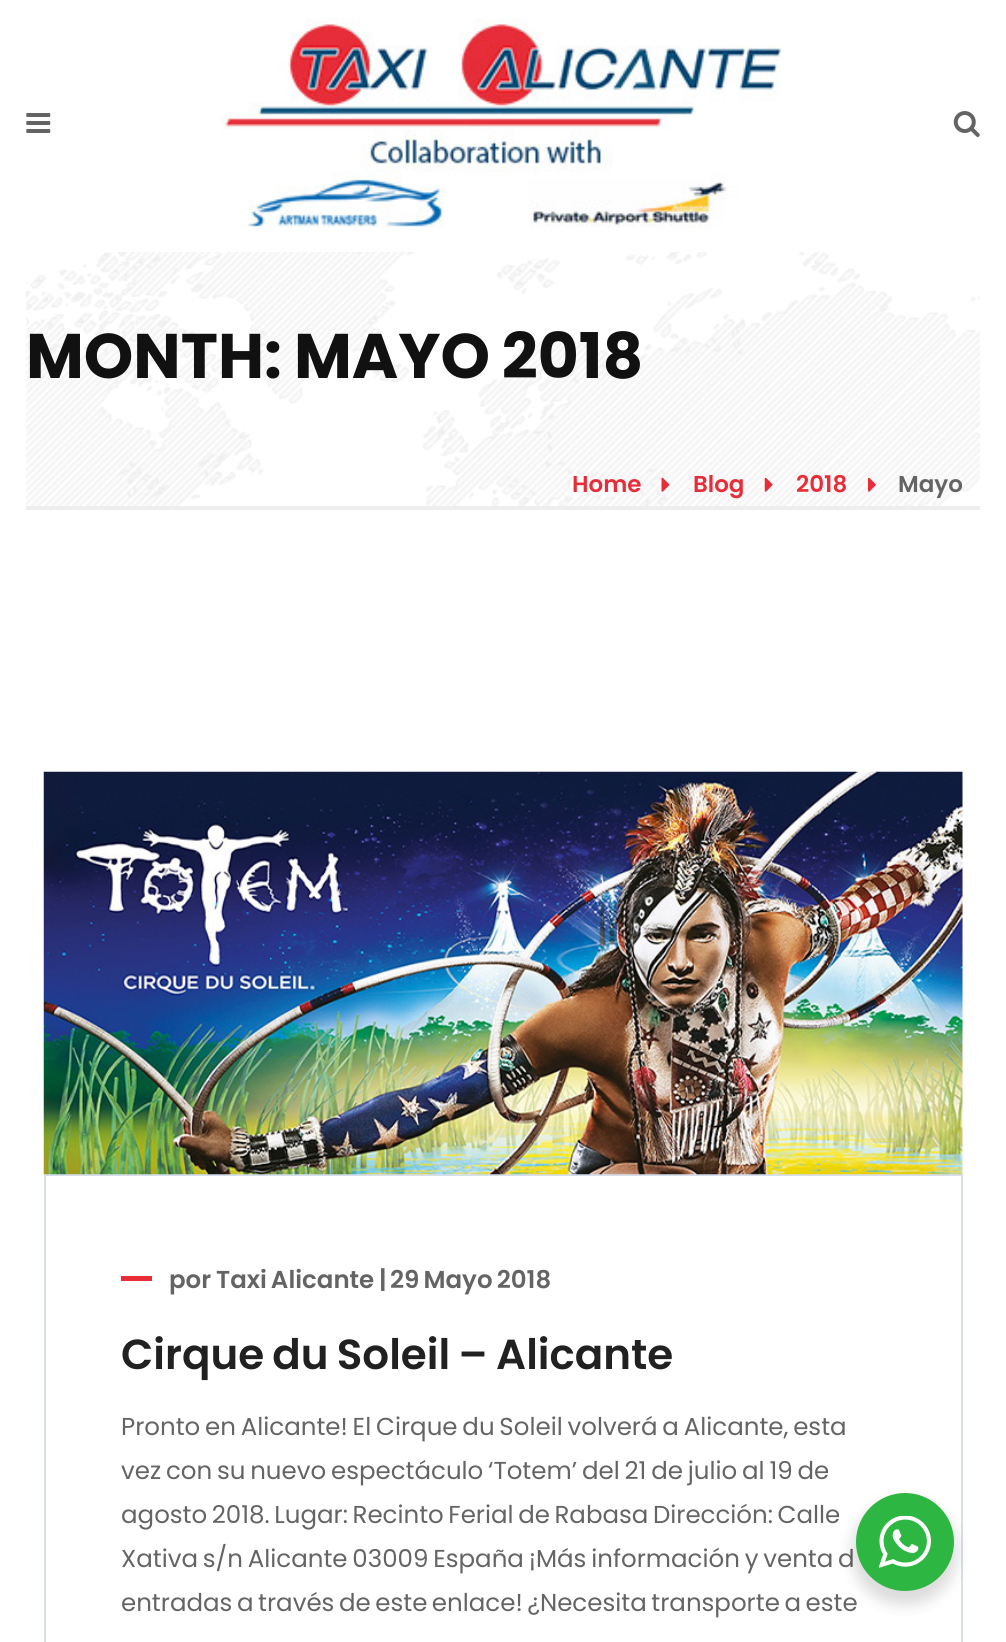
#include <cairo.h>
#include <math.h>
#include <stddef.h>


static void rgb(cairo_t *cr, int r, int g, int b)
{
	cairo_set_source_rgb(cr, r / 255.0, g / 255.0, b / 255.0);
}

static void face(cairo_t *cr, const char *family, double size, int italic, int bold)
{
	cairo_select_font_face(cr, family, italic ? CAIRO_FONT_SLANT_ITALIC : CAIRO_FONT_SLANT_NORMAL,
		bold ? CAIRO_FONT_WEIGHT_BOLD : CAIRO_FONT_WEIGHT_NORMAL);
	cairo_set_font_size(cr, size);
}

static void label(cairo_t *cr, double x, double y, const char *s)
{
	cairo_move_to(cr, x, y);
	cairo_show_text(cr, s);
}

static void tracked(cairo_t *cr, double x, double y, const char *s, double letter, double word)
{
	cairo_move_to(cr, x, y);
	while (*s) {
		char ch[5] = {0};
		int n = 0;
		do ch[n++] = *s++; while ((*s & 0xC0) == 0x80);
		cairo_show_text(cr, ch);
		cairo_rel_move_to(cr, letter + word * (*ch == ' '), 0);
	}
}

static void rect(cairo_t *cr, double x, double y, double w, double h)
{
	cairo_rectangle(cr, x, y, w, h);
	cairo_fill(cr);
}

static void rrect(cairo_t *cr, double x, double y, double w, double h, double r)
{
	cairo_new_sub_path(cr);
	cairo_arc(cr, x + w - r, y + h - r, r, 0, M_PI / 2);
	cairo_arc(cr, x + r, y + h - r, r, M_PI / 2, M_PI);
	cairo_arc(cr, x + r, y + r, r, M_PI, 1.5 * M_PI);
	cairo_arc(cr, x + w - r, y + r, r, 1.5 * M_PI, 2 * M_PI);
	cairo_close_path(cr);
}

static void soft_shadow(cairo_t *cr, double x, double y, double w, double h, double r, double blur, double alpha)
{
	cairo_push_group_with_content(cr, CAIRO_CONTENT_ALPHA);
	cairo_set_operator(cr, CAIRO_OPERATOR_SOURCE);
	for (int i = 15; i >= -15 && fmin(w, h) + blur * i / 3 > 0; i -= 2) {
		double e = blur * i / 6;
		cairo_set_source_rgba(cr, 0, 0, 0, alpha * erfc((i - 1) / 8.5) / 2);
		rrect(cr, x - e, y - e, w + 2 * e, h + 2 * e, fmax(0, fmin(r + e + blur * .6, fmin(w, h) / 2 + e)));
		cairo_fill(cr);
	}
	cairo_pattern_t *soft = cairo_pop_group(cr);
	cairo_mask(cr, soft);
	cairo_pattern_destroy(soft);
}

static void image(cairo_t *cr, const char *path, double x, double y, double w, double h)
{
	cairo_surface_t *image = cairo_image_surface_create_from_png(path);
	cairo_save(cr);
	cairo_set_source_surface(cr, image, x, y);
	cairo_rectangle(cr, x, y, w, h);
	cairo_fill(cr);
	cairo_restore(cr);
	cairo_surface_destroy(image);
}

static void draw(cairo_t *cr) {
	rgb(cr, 255, 255, 255);
	cairo_paint(cr);
	image(cr, "image0.png", 26, 113, 25, 20);
	image(cr, "image1.png", 220, 17, 561, 211);
	image(cr, "image2.png", 953, 111, 27, 26);
	image(cr, "image3.png", 26, 252, 954, 254);
	rgb(cr, 238, 238, 238);
	rect(cr, 26, 506, 954, 4);
	face(cr, "Poppins", 63, 0, 1);
	rgb(cr, 17, 17, 17);
	label(cr, 26, 378, "MONTH:");
	tracked(cr, 294, 378, "MAYO 2018", 0, -1.75);
	face(cr, "Poppins SemiBold", 23, 0, 0);
	rgb(cr, 230, 45, 56);
	label(cr, 572, 492, "Home");
	image(cr, "image4.png", 661, 477, 9, 15);
	label(cr, 693, 492, "Blog");
	image(cr, "image5.png", 764, 477, 9, 15);
	label(cr, 796, 492, "2018");
	image(cr, "image6.png", 868, 477, 8, 15);
	rgb(cr, 100, 100, 100);
	label(cr, 898, 492, "Mayo");
	cairo_rectangle(cr, 45, 1175, 917, 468);
	rgb(cr, 214, 223, 237);
	cairo_stroke(cr);
	image(cr, "image7.png", 43, 771, 920, 404);
	rgb(cr, 230, 45, 56);
	rect(cr, 121, 1276, 31, 5);
	face(cr, "Poppins SemiBold", 24.5, 0, 0);
	rgb(cr, 100, 100, 100);
	label(cr, 169, 1288, "por");
	tracked(cr, 216, 1288, "Taxi Alicante", 0, -1.75);
	label(cr, 379, 1288, "|");
	tracked(cr, 390, 1288, "29 Mayo 2018", 0, -1.75);
	face(cr, "Poppins SemiBold", 42, 0, 0);
	rgb(cr, 33, 33, 33);
	tracked(cr, 121, 1369, "Cirque du Soleil – Alicante", 0, -1.75);
	face(cr, "Poppins", 24.5, 0, 0);
	rgb(cr, 100, 100, 100);
	tracked(cr, 121, 1435, "Pronto en Alicante! El Cirque du Soleil volverá a Alicante, esta", 0, -1.75);
	tracked(cr, 121, 1479, "vez con su nuevo espectáculo ‘Totem’ del 21 de julio al 19 de", 0, -1.75);
	tracked(cr, 121, 1523, "agosto 2018. Lugar: Recinto Ferial de Rabasa Dirección: Calle", 0, -2);
	tracked(cr, 121, 1567, "Xativa s/n Alicante 03009 España ¡Más información y venta d", 0, -1.75);
	tracked(cr, 121, 1611, "entradas a través de este enlace! ¿Necesita transporte a este", 0, -2);
	rgb(cr, 0, 0, 0);
	soft_shadow(cr, 852, 1500, 105, 105, 52.5, 7, 0.14);
	rgb(cr, 45, 183, 66);
	cairo_arc(cr, 905, 1542, 49, 0, 2 * M_PI);
	cairo_fill(cr);
	image(cr, "image8.png", 879, 1516, 52, 52);
}

int main(void) {
	cairo_surface_t *surface = cairo_image_surface_create(CAIRO_FORMAT_RGB24, 1006, 1642);
	cairo_t *cr = cairo_create(surface);
	cairo_font_options_t *options = cairo_font_options_create();
	cairo_font_options_set_hint_metrics(options, CAIRO_HINT_METRICS_OFF);
	cairo_font_options_set_hint_style(options, CAIRO_HINT_STYLE_NONE);
	cairo_set_font_options(cr, options);
	cairo_set_miter_limit(cr, 4);
	draw(cr);
	cairo_surface_write_to_png(surface, "render.png");
	cairo_font_options_destroy(options);
	cairo_destroy(cr);
	cairo_surface_destroy(surface);
	return 0;
}
